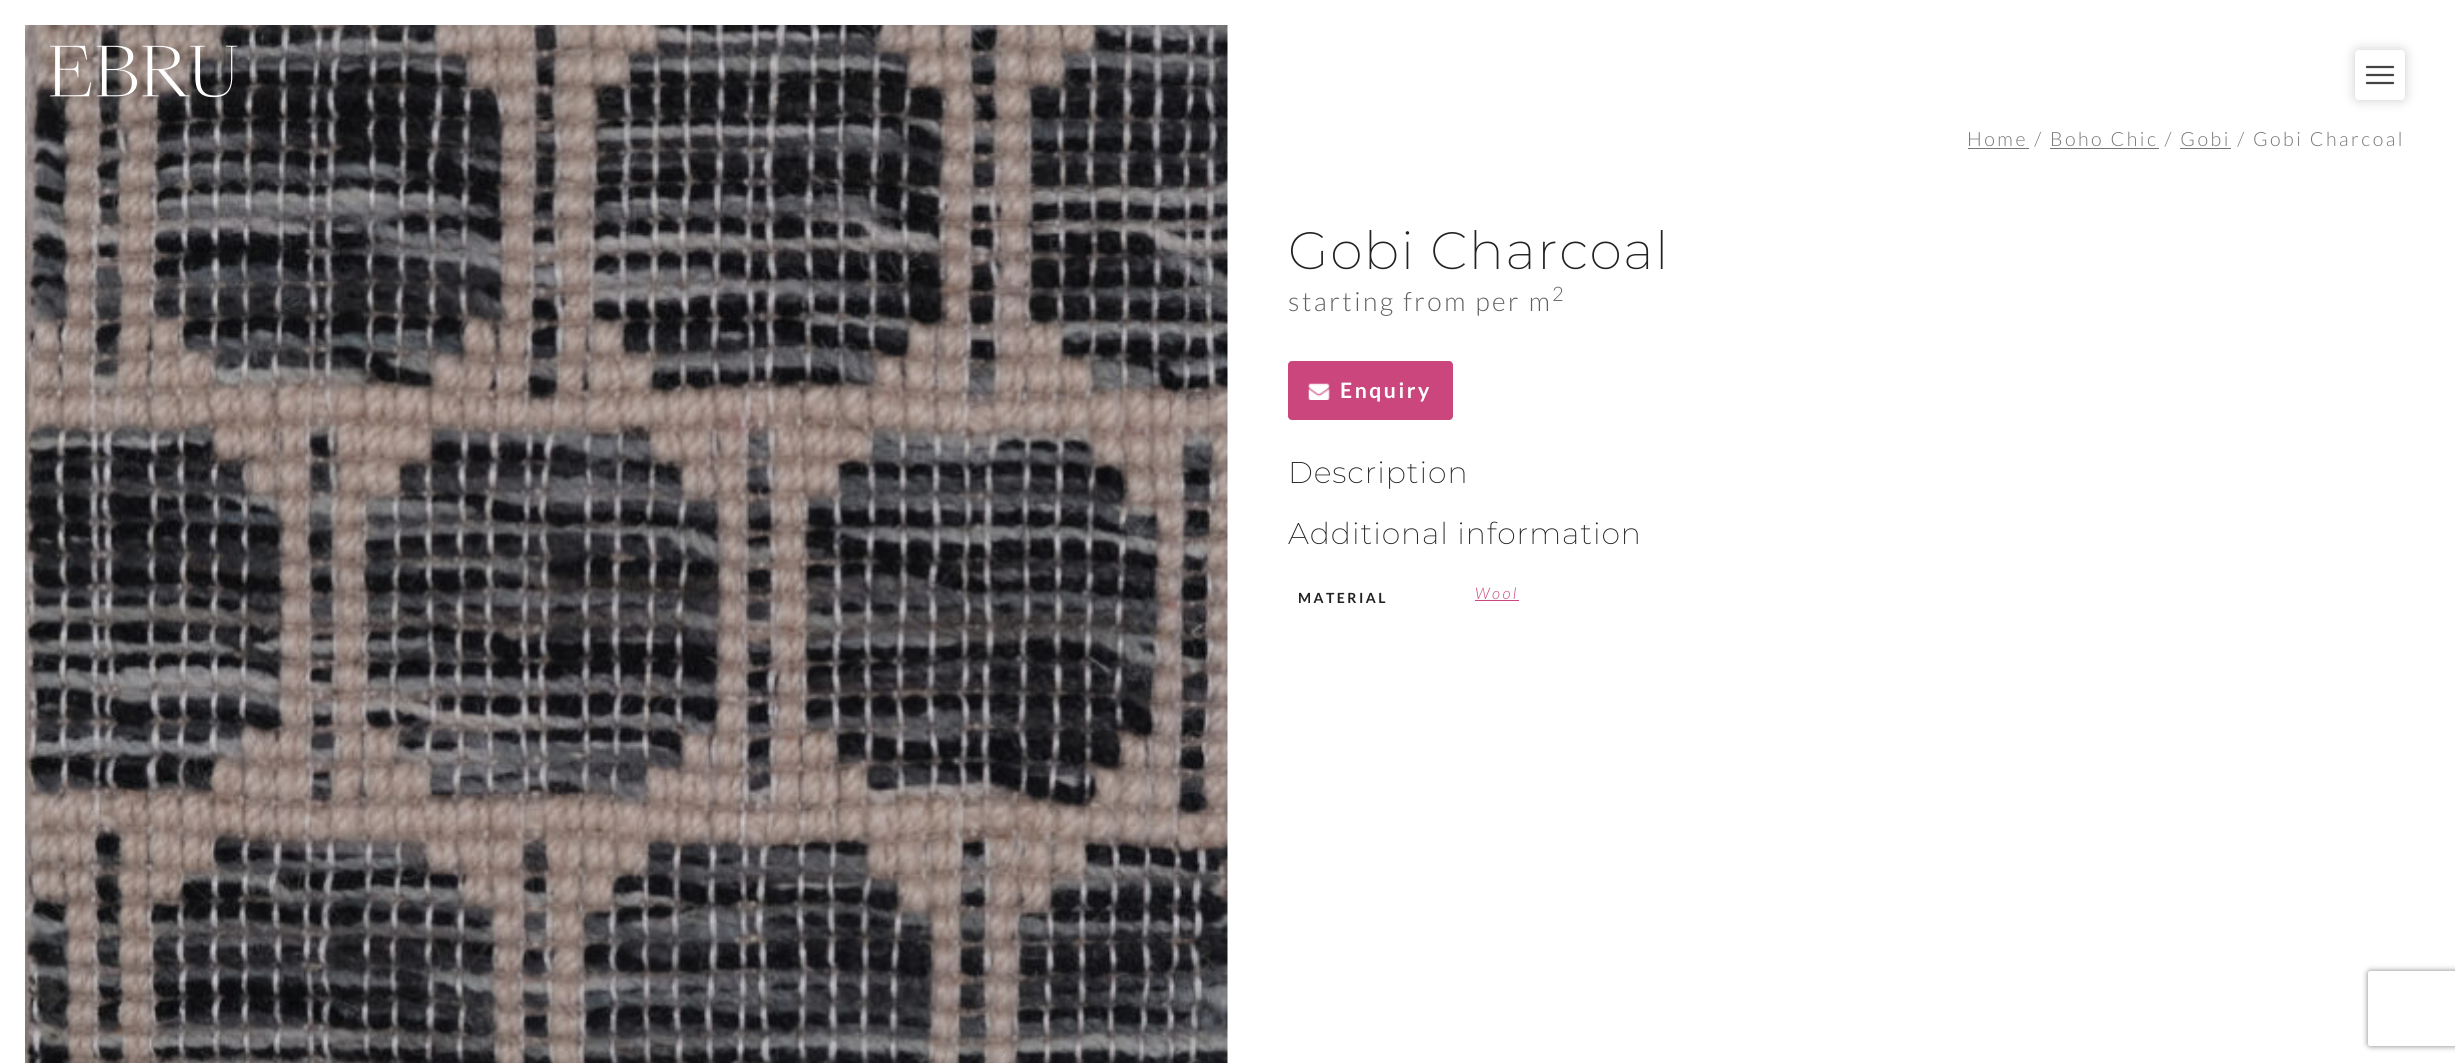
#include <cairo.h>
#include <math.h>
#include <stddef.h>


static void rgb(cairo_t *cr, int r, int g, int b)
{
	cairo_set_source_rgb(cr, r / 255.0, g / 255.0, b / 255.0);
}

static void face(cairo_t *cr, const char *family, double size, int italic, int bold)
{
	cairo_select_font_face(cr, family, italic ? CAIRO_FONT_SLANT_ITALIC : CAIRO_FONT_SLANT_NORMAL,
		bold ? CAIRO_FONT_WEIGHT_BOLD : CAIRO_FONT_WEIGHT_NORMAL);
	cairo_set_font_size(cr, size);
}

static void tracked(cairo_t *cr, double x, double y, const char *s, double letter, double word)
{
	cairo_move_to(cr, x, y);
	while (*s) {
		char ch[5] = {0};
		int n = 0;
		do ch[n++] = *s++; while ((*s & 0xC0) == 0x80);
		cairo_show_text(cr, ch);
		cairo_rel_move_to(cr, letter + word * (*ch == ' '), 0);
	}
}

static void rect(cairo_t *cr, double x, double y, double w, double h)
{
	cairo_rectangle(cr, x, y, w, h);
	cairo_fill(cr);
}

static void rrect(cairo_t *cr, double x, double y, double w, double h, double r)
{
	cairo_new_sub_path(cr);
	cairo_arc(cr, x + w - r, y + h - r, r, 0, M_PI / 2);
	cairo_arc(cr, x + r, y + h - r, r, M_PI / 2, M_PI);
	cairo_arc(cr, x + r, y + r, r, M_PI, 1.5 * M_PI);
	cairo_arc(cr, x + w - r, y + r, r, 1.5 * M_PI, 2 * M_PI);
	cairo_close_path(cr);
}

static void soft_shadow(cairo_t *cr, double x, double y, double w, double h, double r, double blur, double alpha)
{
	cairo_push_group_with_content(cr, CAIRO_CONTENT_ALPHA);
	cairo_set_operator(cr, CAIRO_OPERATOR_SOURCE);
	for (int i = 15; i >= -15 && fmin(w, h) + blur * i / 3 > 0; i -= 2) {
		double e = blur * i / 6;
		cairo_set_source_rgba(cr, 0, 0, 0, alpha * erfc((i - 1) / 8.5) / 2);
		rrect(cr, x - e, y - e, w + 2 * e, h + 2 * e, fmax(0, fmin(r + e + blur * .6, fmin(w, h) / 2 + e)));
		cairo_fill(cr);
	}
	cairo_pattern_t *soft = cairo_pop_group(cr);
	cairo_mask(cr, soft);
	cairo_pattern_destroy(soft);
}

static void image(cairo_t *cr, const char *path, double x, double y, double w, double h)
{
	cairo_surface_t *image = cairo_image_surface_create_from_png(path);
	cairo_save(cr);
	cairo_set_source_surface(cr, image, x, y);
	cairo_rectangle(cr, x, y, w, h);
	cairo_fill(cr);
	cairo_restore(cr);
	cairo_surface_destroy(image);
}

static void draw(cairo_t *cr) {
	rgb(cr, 255, 255, 255);
	cairo_paint(cr);
	image(cr, "image1.png", 25, 25, 1203, 1038);
	image(cr, "image0.png", 50, 45, 188, 53);
	rgb(cr, 0, 0, 0);
	soft_shadow(cr, 2355, 50, 50, 50, 4, 6, 0.2);
	rgb(cr, 255, 255, 255);
	rrect(cr, 2355, 50, 50, 50, 4);
	cairo_fill(cr);
	cairo_new_path(cr);
	cairo_move_to(cr, 2367, 67);
	cairo_line_to(cr, 2393, 67);
	cairo_move_to(cr, 2367, 75);
	cairo_line_to(cr, 2393, 75);
	cairo_move_to(cr, 2367, 83);
	cairo_line_to(cr, 2393, 83);
	rgb(cr, 68, 68, 68);
	cairo_set_line_width(cr, 2.3);
	cairo_set_line_cap(cr, CAIRO_LINE_CAP_ROUND);
	cairo_set_line_join(cr, CAIRO_LINE_JOIN_ROUND);
	cairo_stroke(cr);
	face(cr, "Lato Light", 19.55, 0, 0);
	rgb(cr, 118, 118, 118);
	tracked(cr, 1967, 146, "Home / Boho Chic / Gobi / Gobi Charcoal", 2.5, 0);
	rect(cr, 1968, 148, 61, 1);
	rect(cr, 2050, 148, 109, 1);
	rect(cr, 2180, 148, 51, 1);
	face(cr, "Montserrat ExtraLight", 52.5, 0, 0);
	rgb(cr, 34, 34, 34);
	tracked(cr, 1288, 269, "Gobi Charcoal", 1.5, 0);
	face(cr, "Lato Light", 26.5, 0, 0);
	rgb(cr, 96, 96, 96);
	tracked(cr, 1288, 311, "starting from per m", 2.5, 0);
	face(cr, "Lato Light", 20, 0, 0);
	tracked(cr, 1552, 301, "2", 2.5, 0);
	rgb(cr, 202, 70, 124);
	rrect(cr, 1288, 361, 165, 59, 4);
	cairo_fill(cr);
	image(cr, "image2.png", 1308, 383, 22, 17);
	face(cr, "Lato", 21.25, 0, 1);
	rgb(cr, 255, 255, 255);
	tracked(cr, 1340, 398, "Enquiry", 2.5, 0);
	face(cr, "Montserrat ExtraLight", 30, 0, 0);
	rgb(cr, 34, 34, 34);
	tracked(cr, 1288, 483, "Description", 0.9, 0);
	tracked(cr, 1288, 544, "Additional information", 0.9, 0);
	face(cr, "Lato", 14, 0, 1);
	tracked(cr, 1298, 603, "MATERIAL", 2.5, 0);
	face(cr, "Lato Light", 16, 1, 0);
	rgb(cr, 202, 70, 124);
	tracked(cr, 1475, 599, "Wool", 2.5, 0);
	rect(cr, 1475, 600, 44, 1);
	cairo_save(cr);
	cairo_set_fill_rule(cr, CAIRO_FILL_RULE_EVEN_ODD);
	cairo_new_path(cr);
	cairo_move_to(cr, 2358, 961);
	cairo_line_to(cr, 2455, 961);
	cairo_line_to(cr, 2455, 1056);
	cairo_line_to(cr, 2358, 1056);
	cairo_close_path(cr);
	cairo_move_to(cr, 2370.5, 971);
	cairo_line_to(cr, 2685.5, 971);
	cairo_curve_to(cr, 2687, 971, 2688, 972, 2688, 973.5);
	cairo_line_to(cr, 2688, 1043.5);
	cairo_curve_to(cr, 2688, 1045, 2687, 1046, 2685.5, 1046);
	cairo_line_to(cr, 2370.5, 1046);
	cairo_curve_to(cr, 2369, 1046, 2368, 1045, 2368, 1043.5);
	cairo_line_to(cr, 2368, 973.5);
	cairo_curve_to(cr, 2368, 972, 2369, 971, 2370.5, 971);
	cairo_close_path(cr);
	cairo_clip(cr);
	rgb(cr, 128, 128, 128);
	soft_shadow(cr, 2368, 971, 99, 75, 2.5, 3, 1);
	cairo_restore(cr);
}

int main(void) {
	cairo_surface_t *surface = cairo_image_surface_create(CAIRO_FORMAT_RGB24, 2455, 1063);
	cairo_t *cr = cairo_create(surface);
	cairo_font_options_t *options = cairo_font_options_create();
	cairo_font_options_set_hint_metrics(options, CAIRO_HINT_METRICS_OFF);
	cairo_font_options_set_hint_style(options, CAIRO_HINT_STYLE_NONE);
	cairo_set_font_options(cr, options);
	cairo_set_miter_limit(cr, 4);
	draw(cr);
	cairo_surface_write_to_png(surface, "render.png");
	cairo_font_options_destroy(options);
	cairo_destroy(cr);
	cairo_surface_destroy(surface);
	return 0;
}
